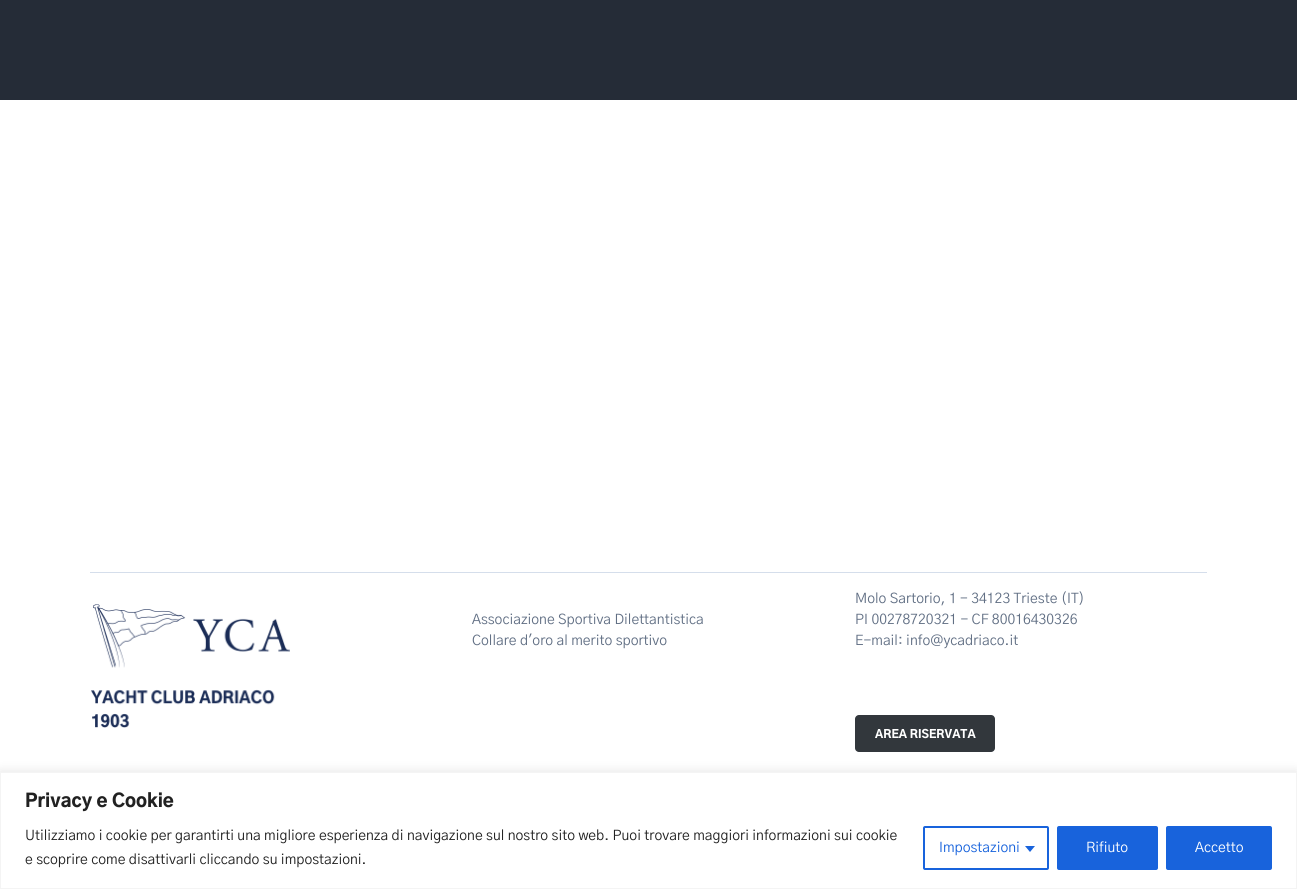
#include <cairo.h>
#include <math.h>
#include <stddef.h>


static void rgb(cairo_t *cr, int r, int g, int b)
{
	cairo_set_source_rgb(cr, r / 255.0, g / 255.0, b / 255.0);
}

static void face(cairo_t *cr, const char *family, double size, int italic, int bold)
{
	cairo_select_font_face(cr, family, italic ? CAIRO_FONT_SLANT_ITALIC : CAIRO_FONT_SLANT_NORMAL,
		bold ? CAIRO_FONT_WEIGHT_BOLD : CAIRO_FONT_WEIGHT_NORMAL);
	cairo_set_font_size(cr, size);
}

static void label(cairo_t *cr, double x, double y, const char *s)
{
	cairo_move_to(cr, x, y);
	cairo_show_text(cr, s);
}

static void rect(cairo_t *cr, double x, double y, double w, double h)
{
	cairo_rectangle(cr, x, y, w, h);
	cairo_fill(cr);
}

static void rrect(cairo_t *cr, double x, double y, double w, double h, double r)
{
	cairo_new_sub_path(cr);
	cairo_arc(cr, x + w - r, y + h - r, r, 0, M_PI / 2);
	cairo_arc(cr, x + r, y + h - r, r, M_PI / 2, M_PI);
	cairo_arc(cr, x + r, y + r, r, M_PI, 1.5 * M_PI);
	cairo_arc(cr, x + w - r, y + r, r, 1.5 * M_PI, 2 * M_PI);
	cairo_close_path(cr);
}

static void soft_shadow(cairo_t *cr, double x, double y, double w, double h, double r, double blur, double alpha)
{
	cairo_push_group_with_content(cr, CAIRO_CONTENT_ALPHA);
	cairo_set_operator(cr, CAIRO_OPERATOR_SOURCE);
	for (int i = 15; i >= -15 && fmin(w, h) + blur * i / 3 > 0; i -= 2) {
		double e = blur * i / 6;
		cairo_set_source_rgba(cr, 0, 0, 0, alpha * erfc((i - 1) / 8.5) / 2);
		rrect(cr, x - e, y - e, w + 2 * e, h + 2 * e, fmax(0, fmin(r + e + blur * .6, fmin(w, h) / 2 + e)));
		cairo_fill(cr);
	}
	cairo_pattern_t *soft = cairo_pop_group(cr);
	cairo_mask(cr, soft);
	cairo_pattern_destroy(soft);
}

static void image(cairo_t *cr, const char *path, double x, double y, double w, double h)
{
	cairo_surface_t *image = cairo_image_surface_create_from_png(path);
	cairo_save(cr);
	cairo_set_source_surface(cr, image, x, y);
	cairo_rectangle(cr, x, y, w, h);
	cairo_fill(cr);
	cairo_restore(cr);
	cairo_surface_destroy(image);
}

static void draw(cairo_t *cr) {
	rgb(cr, 255, 255, 255);
	cairo_paint(cr);
	rgb(cr, 37, 44, 55);
	rect(cr, 0, 0, 1297, 100);
	rgb(cr, 213, 222, 235);
	rect(cr, 90, 572, 1117, 1);
	image(cr, "image0.png", 91, 604, 199, 124);
	face(cr, "Gothic A1", 14, 0, 0);
	rgb(cr, 97, 111, 132);
	label(cr, 472, 624, "Associazione Sportiva Dilettantistica");
	label(cr, 472, 645, "Collare d'oro al merito sportivo");
	label(cr, 855, 603, "Molo Sartorio, 1 - 34123 Trieste (IT)");
	label(cr, 855, 624, "PI 00278720321 - CF 80016430326");
	label(cr, 855, 645, "E-mail: info@ycadriaco.it");
	rgb(cr, 50, 55, 60);
	rrect(cr, 855, 715, 140, 37, 4);
	cairo_fill(cr);
	face(cr, "Gothic A1 Black", 11.25, 0, 0);
	rgb(cr, 255, 255, 255);
	label(cr, 875, 738, "AREA RISERVATA");
	rgb(cr, 172, 171, 171);
	soft_shadow(cr, 0, 771, 1297, 117, 0, 5, 0.3);
	rgb(cr, 255, 255, 255);
	cairo_rectangle(cr, 0.5, 772.5, 1296, 116);
	cairo_fill_preserve(cr);
	rgb(cr, 244, 244, 244);
	cairo_set_line_width(cr, 1);
	cairo_stroke(cr);
	face(cr, "Gothic A1 Black", 18, 0, 0);
	rgb(cr, 33, 33, 33);
	label(cr, 25, 807, "Privacy e Cookie");
	face(cr, "Gothic A1", 14, 0, 0);
	label(cr, 25, 840, "Utilizziamo i cookie per garantirti una migliore esperienza di navigazione sul nostro sito web. Puoi trovare maggiori informazioni sui cookie");
	label(cr, 25, 864, "e scoprire come disattivarli cliccando su impostazioni.");
	rrect(cr, 924, 827, 124, 42, 1);
	rgb(cr, 24, 99, 220);
	cairo_set_line_width(cr, 2);
	cairo_stroke(cr);
	label(cr, 939, 852, "Impostazioni");
	cairo_new_path(cr);
	cairo_move_to(cr, 1025, 846);
	cairo_line_to(cr, 1035, 846);
	cairo_line_to(cr, 1030, 852);
	cairo_close_path(cr);
	cairo_fill(cr);
	rrect(cr, 1058, 827, 99, 42, 1);
	cairo_fill_preserve(cr);
	cairo_stroke(cr);
	rgb(cr, 255, 255, 255);
	label(cr, 1086, 852, "Rifiuto");
	rgb(cr, 24, 99, 220);
	rrect(cr, 1167, 827, 104, 42, 1);
	cairo_fill_preserve(cr);
	cairo_stroke(cr);
	rgb(cr, 255, 255, 255);
	label(cr, 1195, 852, "Accetto");
}

int main(void) {
	cairo_surface_t *surface = cairo_image_surface_create(CAIRO_FORMAT_RGB24, 1297, 889);
	cairo_t *cr = cairo_create(surface);
	cairo_font_options_t *options = cairo_font_options_create();
	cairo_font_options_set_hint_metrics(options, CAIRO_HINT_METRICS_OFF);
	cairo_font_options_set_hint_style(options, CAIRO_HINT_STYLE_NONE);
	cairo_set_font_options(cr, options);
	cairo_set_miter_limit(cr, 4);
	draw(cr);
	cairo_surface_write_to_png(surface, "render.png");
	cairo_font_options_destroy(options);
	cairo_destroy(cr);
	cairo_surface_destroy(surface);
	return 0;
}
